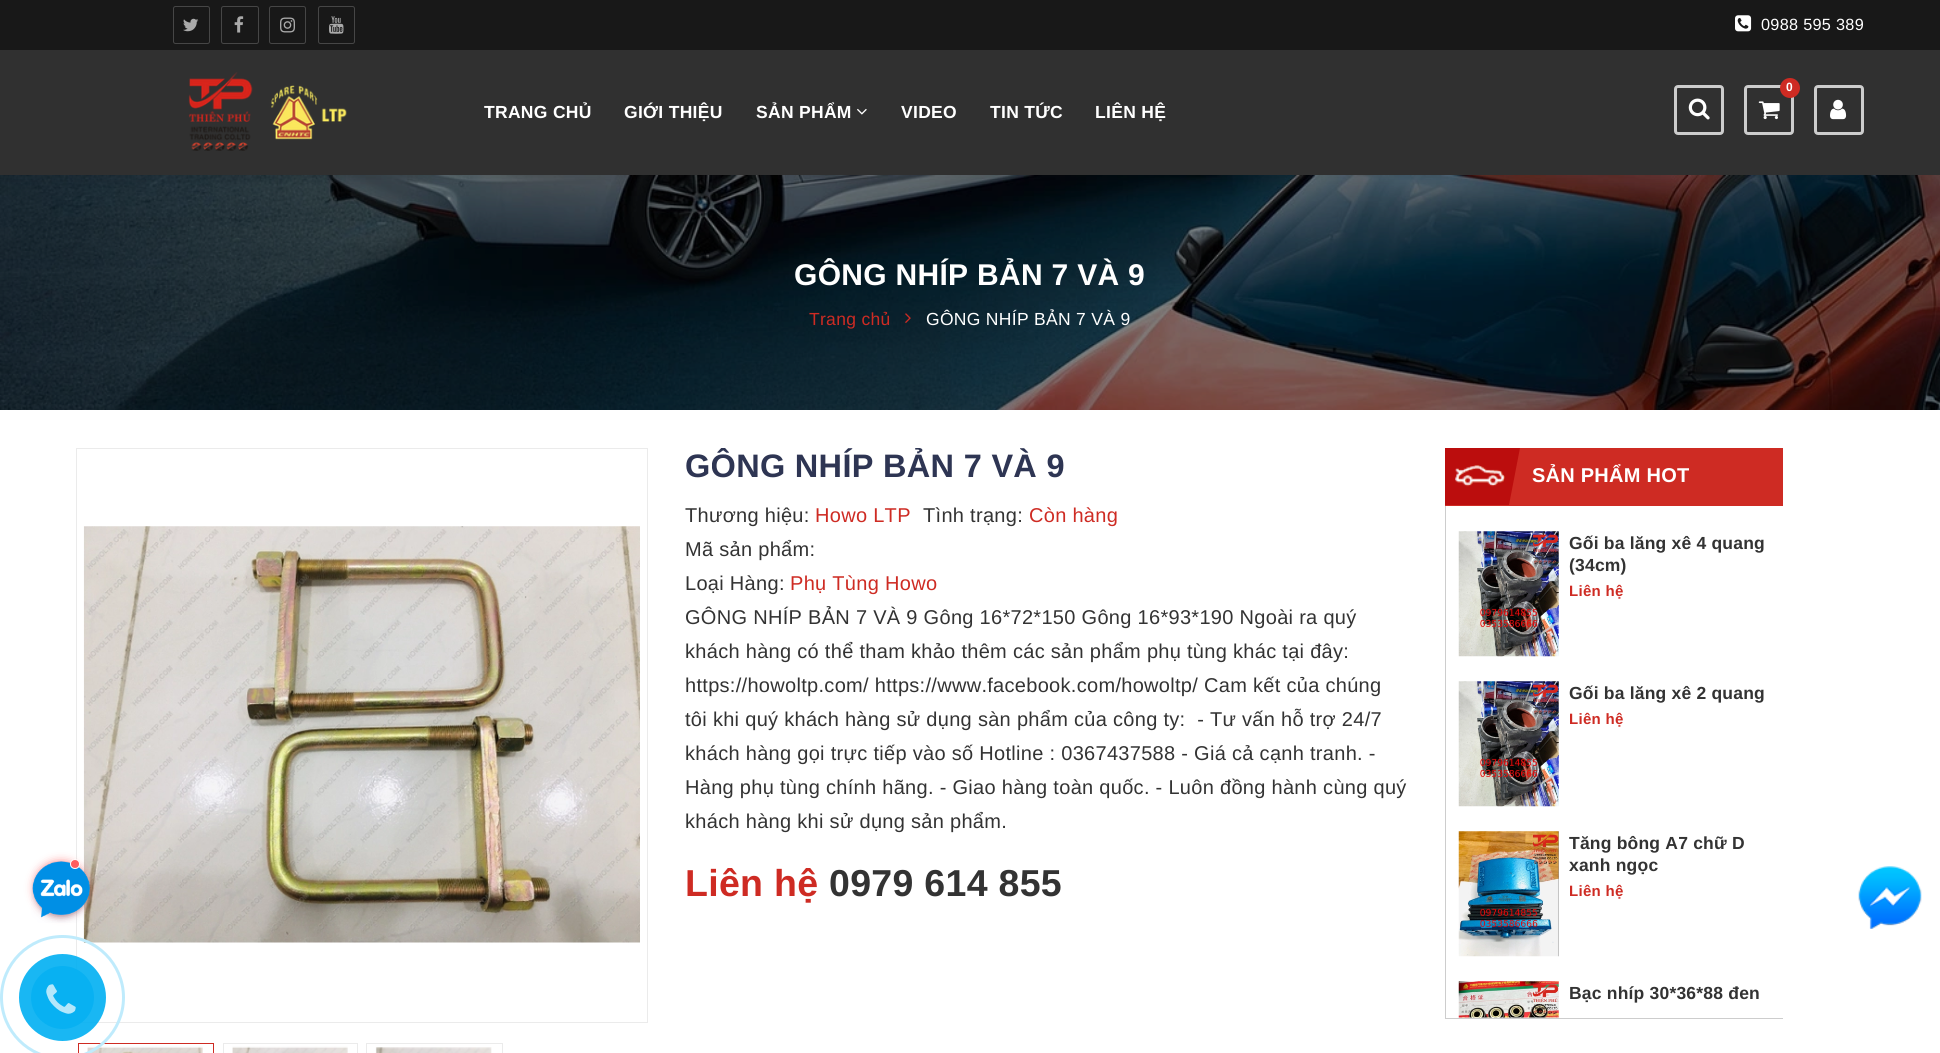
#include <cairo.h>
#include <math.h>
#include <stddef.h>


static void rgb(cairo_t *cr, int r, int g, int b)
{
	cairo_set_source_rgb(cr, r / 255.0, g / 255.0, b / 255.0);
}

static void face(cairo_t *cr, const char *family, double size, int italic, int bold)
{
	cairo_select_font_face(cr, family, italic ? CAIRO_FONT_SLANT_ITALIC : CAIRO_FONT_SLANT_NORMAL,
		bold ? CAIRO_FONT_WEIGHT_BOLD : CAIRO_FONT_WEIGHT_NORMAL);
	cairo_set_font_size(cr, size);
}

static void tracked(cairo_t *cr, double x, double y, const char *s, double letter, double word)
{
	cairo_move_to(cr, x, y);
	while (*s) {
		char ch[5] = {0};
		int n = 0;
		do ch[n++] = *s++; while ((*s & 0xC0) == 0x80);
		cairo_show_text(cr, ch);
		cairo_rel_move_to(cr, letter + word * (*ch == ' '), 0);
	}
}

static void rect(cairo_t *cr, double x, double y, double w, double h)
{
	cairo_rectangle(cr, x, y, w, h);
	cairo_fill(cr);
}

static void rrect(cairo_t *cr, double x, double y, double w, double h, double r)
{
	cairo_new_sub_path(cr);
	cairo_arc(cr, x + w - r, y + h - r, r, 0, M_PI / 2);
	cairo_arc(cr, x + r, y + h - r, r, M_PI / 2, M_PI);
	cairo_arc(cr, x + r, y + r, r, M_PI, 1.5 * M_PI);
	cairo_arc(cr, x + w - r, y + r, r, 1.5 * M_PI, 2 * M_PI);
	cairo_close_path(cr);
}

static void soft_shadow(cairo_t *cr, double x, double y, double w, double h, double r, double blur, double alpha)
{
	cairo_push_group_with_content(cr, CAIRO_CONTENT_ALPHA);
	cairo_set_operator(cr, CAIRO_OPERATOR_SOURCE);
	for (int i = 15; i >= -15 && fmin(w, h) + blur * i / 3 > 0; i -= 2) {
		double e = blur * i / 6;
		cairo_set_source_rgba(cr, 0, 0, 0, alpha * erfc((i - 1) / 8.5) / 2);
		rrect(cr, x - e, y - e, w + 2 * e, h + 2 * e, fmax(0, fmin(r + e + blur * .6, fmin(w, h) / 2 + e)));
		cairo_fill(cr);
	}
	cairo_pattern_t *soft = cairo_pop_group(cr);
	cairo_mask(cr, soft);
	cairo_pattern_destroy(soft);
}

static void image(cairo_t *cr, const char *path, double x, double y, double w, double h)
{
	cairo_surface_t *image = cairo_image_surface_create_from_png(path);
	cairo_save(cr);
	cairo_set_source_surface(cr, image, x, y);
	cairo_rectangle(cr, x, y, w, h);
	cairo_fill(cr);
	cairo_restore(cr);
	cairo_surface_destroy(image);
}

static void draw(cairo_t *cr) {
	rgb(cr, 255, 255, 255);
	cairo_paint(cr);
	image(cr, "image10.png", 0, 175, 1940, 235);
	rgb(cr, 0, 0, 0);
	soft_shadow(cr, 0, 0, 1940, 175, 0, 6, 0.1);
	rgb(cr, 24, 24, 24);
	rect(cr, 0, 0, 1940, 50);
	rrect(cr, 173.5, 6.5, 36, 37, 2);
	rgb(cr, 70, 70, 70);
	cairo_set_line_width(cr, 1);
	cairo_stroke(cr);
	image(cr, "image0.png", 183, 18, 16, 14);
	rrect(cr, 221.5, 6.5, 37, 37, 2);
	cairo_stroke(cr);
	image(cr, "image1.png", 234, 16, 10, 17);
	rrect(cr, 269.5, 6.5, 36, 37, 2);
	cairo_stroke(cr);
	image(cr, "image2.png", 280, 17, 15, 16);
	rrect(cr, 318.5, 6.5, 36, 37, 2);
	cairo_stroke(cr);
	image(cr, "image3.png", 329, 16, 15, 18);
	image(cr, "image4.png", 1735, 15, 17, 17);
	face(cr, "Liberation Sans", 16.25, 0, 0);
	rgb(cr, 255, 255, 255);
	tracked(cr, 1761, 30, "0988 595 389", 0.3, 0);
	rgb(cr, 48, 48, 48);
	rect(cr, 0, 50, 1940, 125);
	image(cr, "image5.png", 188, 72, 159, 79);
	rrect(cr, 1675.5, 86.5, 47, 47, 2.5);
	rgb(cr, 204, 204, 204);
	cairo_set_line_width(cr, 3);
	cairo_stroke(cr);
	image(cr, "image6.png", 1688, 98, 22, 22);
	rrect(cr, 1745.5, 86.5, 47, 47, 2.5);
	cairo_stroke(cr);
	rgb(cr, 206, 43, 35);
	cairo_arc(cr, 1790, 88, 10, 0, 2 * M_PI);
	cairo_fill(cr);
	face(cr, "Liberation Sans", 12, 0, 1);
	rgb(cr, 255, 255, 255);
	tracked(cr, 1786, 91, "0", 0.3, 0);
	image(cr, "image7.png", 1758, 101, 22, 19);
	rrect(cr, 1815.5, 86.5, 47, 47, 2.5);
	rgb(cr, 204, 204, 204);
	cairo_stroke(cr);
	image(cr, "image8.png", 1830, 99, 17, 21);
	face(cr, "Liberation Sans", 17.5, 0, 1);
	rgb(cr, 255, 255, 255);
	tracked(cr, 484, 118, "TRANG CHỦ", 0.3, 0);
	tracked(cr, 624, 118, "GIỚI THIỆU", 0.3, 0);
	tracked(cr, 756, 118, "SẢN PHẨM", 0.3, 0);
	image(cr, "image9.png", 857, 108, 10, 7);
	tracked(cr, 901, 118, "VIDEO", 0.3, 0);
	tracked(cr, 990, 118, "TIN TỨC", 0.3, 0);
	tracked(cr, 1095, 118, "LIÊN HỆ", 0.3, 0);
	face(cr, "Liberation Sans", 30, 0, 1);
	tracked(cr, 794, 285, "GÔNG NHÍP BẢN 7 VÀ 9", 0.3, 0);
	face(cr, "Liberation Sans", 17.5, 0, 0);
	rgb(cr, 206, 43, 35);
	tracked(cr, 809, 325, "Trang chủ", 0.3, 0);
	image(cr, "image11.png", 905, 313, 6, 10);
	rgb(cr, 255, 255, 255);
	tracked(cr, 926, 325, "GÔNG NHÍP BẢN 7 VÀ 9", 0.3, 0);
	cairo_rectangle(cr, 76.5, 448.5, 571, 574);
	rgb(cr, 235, 235, 235);
	cairo_set_line_width(cr, 1);
	cairo_stroke(cr);
	image(cr, "image13.png", 83, 526, 557, 417);
	rgb(cr, 255, 93, 93);
	soft_shadow(cr, 36, 863, 50, 50, 25, 5, 1);
	image(cr, "image12.png", 31, 861, 61, 62);
	rgb(cr, 255, 93, 93);
	cairo_arc(cr, 75, 864, 4.5, 0, 2 * M_PI);
	cairo_fill_preserve(cr);
	rgb(cr, 255, 255, 255);
	cairo_stroke(cr);
	cairo_rectangle(cr, 78.5, 1043.5, 135, 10);
	rgb(cr, 206, 43, 35);
	cairo_stroke(cr);
	image(cr, "image14.png", 87, 1046, 116, 7);
	cairo_rectangle(cr, 223.5, 1043.5, 134, 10);
	rgb(cr, 235, 235, 235);
	cairo_stroke(cr);
	image(cr, "image15.png", 232, 1046, 116, 7);
	cairo_rectangle(cr, 366.5, 1043.5, 136, 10);
	cairo_stroke(cr);
	image(cr, "image16.png", 375, 1047, 117, 6);
	cairo_save(cr);
	cairo_rectangle(cr, 0, 448, 1940, 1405);
	cairo_clip(cr);
	face(cr, "Liberation Sans", 32.5, 0, 1);
	rgb(cr, 46, 53, 83);
	tracked(cr, 685, 477, "GÔNG NHÍP BẢN 7 VÀ 9", 0.3, 0);
	cairo_restore(cr);
	face(cr, "Liberation Sans", 20, 0, 0);
	rgb(cr, 51, 51, 51);
	tracked(cr, 685, 522, "Thương hiệu:", 0.3, 0);
	rgb(cr, 206, 43, 35);
	tracked(cr, 815, 522, "Howo LTP", 0.3, 0);
	rgb(cr, 51, 51, 51);
	tracked(cr, 923, 522, "Tình trạng:", 0.3, 0);
	rgb(cr, 206, 43, 35);
	tracked(cr, 1029, 522, "Còn hàng", 0.3, 0);
	rgb(cr, 51, 51, 51);
	tracked(cr, 685, 556, "Mã sản phẩm:", 0.3, 0);
	tracked(cr, 685, 590, "Loại Hàng:", 0.3, 0);
	rgb(cr, 206, 43, 35);
	tracked(cr, 790, 590, "Phụ Tùng Howo", 0.3, 0);
	rgb(cr, 51, 51, 51);
	tracked(cr, 685, 624, "GÔNG NHÍP BẢN 7 VÀ 9 Gông 16*72*150 Gông 16*93*190 Ngoài ra quý", 0.3, 0);
	tracked(cr, 685, 658, "khách hàng có thể tham khảo thêm các sản phẩm phụ tùng khác tại đây:", 0.3, 0);
	tracked(cr, 685, 692, "https://howoltp.com/ https://www.facebook.com/howoltp/ Cam kết của chúng", 0.3, 0);
	tracked(cr, 685, 726, "tôi khi quý khách hàng sử dụng sàn phẩm của công ty:  - Tư vấn hỗ trợ 24/7", 0.3, 0);
	tracked(cr, 685, 760, "khách hàng gọi trực tiếp vào số Hotline : 0367437588 - Giá cả cạnh tranh. -", 0.3, 0);
	tracked(cr, 685, 794, "Hàng phụ tùng chính hãng. - Giao hàng toàn quốc. - Luôn đồng hành cùng quý", 0.3, 0);
	tracked(cr, 685, 828, "khách hàng khi sử dụng sản phẩm.", 0.3, 0);
	face(cr, "Liberation Sans", 37.5, 0, 1);
	rgb(cr, 206, 43, 35);
	tracked(cr, 685, 896, "Liên hệ", 0.3, 0);
	rgb(cr, 51, 51, 51);
	tracked(cr, 829, 896, "0979 614 855", 0.3, 0);
	rgb(cr, 206, 43, 35);
	rect(cr, 1445, 448, 338, 58);
	rgb(cr, 187, 13, 13);
	cairo_new_path(cr);
	cairo_move_to(cr, 1445, 448);
	cairo_line_to(cr, 1520, 448);
	cairo_line_to(cr, 1509, 505);
	cairo_line_to(cr, 1445, 505);
	cairo_close_path(cr);
	cairo_fill(cr);
	image(cr, "image17.png", 1455, 465, 50, 22);
	face(cr, "Liberation Sans", 20, 0, 1);
	rgb(cr, 255, 255, 255);
	tracked(cr, 1532, 482, "SẢN PHẨM HOT", 0.25, 0);
	rgb(cr, 205, 205, 205);
	rect(cr, 1445, 1018, 338, 1);
	rect(cr, 1445, 506, 1, 513);
	image(cr, "image18.png", 1458, 531, 101, 126);
	face(cr, "Liberation Sans", 17.5, 0, 1);
	rgb(cr, 51, 51, 51);
	tracked(cr, 1569, 549, "Gối ba lăng xê 4 quang", 0.2, 0);
	tracked(cr, 1569, 571, "(34cm)", 0.2, 0);
	face(cr, "Liberation Sans", 15, 0, 1);
	rgb(cr, 206, 43, 35);
	tracked(cr, 1569, 596, "Liên hệ", 0.3, 0);
	image(cr, "image18.png", 1458, 681, 101, 126);
	face(cr, "Liberation Sans", 17.5, 0, 1);
	rgb(cr, 51, 51, 51);
	tracked(cr, 1569, 699, "Gối ba lăng xê 2 quang", 0.2, 0);
	face(cr, "Liberation Sans", 15, 0, 1);
	rgb(cr, 206, 43, 35);
	tracked(cr, 1569, 724, "Liên hệ", 0.3, 0);
	image(cr, "image19.png", 1458, 831, 101, 126);
	face(cr, "Liberation Sans", 17.5, 0, 1);
	rgb(cr, 51, 51, 51);
	tracked(cr, 1569, 849, "Tăng bông A7 chữ D", 0.2, 0);
	tracked(cr, 1569, 871, "xanh ngọc", 0.2, 0);
	face(cr, "Liberation Sans", 15, 0, 1);
	rgb(cr, 206, 43, 35);
	tracked(cr, 1569, 896, "Liên hệ", 0.3, 0);
	image(cr, "image20.png", 1458, 981, 101, 37);
	face(cr, "Liberation Sans", 17.5, 0, 1);
	rgb(cr, 51, 51, 51);
	tracked(cr, 1569, 999, "Bạc nhíp 30*36*88 đen", 0.2, 0);
	image(cr, "image21.png", 1858, 866, 64, 63);
	cairo_arc(cr, 62.5, 997.5, 61, 0, 2 * M_PI);
	rgb(cr, 191, 235, 252);
	cairo_set_line_width(cr, 3);
	cairo_stroke(cr);
	cairo_set_source_rgba(cr, 0, 0.686, 0.949, 0.9);
	cairo_arc(cr, 62.5, 997.5, 43.5, 0, 2 * M_PI);
	cairo_fill(cr);
	rgb(cr, 8, 177, 242);
	cairo_arc(cr, 62.5, 997.5, 31.5, 0, 2 * M_PI);
	cairo_fill(cr);
	image(cr, "image22.png", 46, 984, 30, 30);
}

int main(void) {
	cairo_surface_t *surface = cairo_image_surface_create(CAIRO_FORMAT_RGB24, 1940, 1053);
	cairo_t *cr = cairo_create(surface);
	cairo_font_options_t *options = cairo_font_options_create();
	cairo_font_options_set_hint_metrics(options, CAIRO_HINT_METRICS_OFF);
	cairo_font_options_set_hint_style(options, CAIRO_HINT_STYLE_NONE);
	cairo_set_font_options(cr, options);
	cairo_set_miter_limit(cr, 4);
	draw(cr);
	cairo_surface_write_to_png(surface, "render.png");
	cairo_font_options_destroy(options);
	cairo_destroy(cr);
	cairo_surface_destroy(surface);
	return 0;
}
